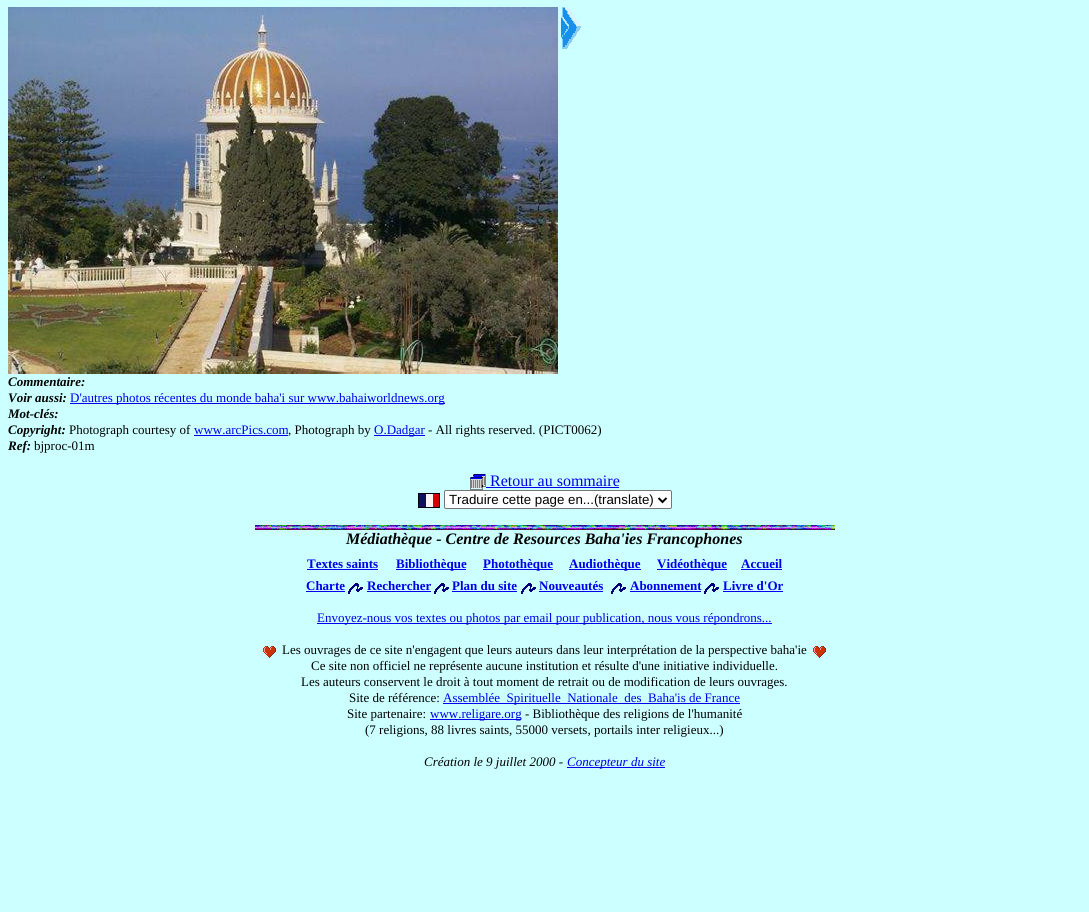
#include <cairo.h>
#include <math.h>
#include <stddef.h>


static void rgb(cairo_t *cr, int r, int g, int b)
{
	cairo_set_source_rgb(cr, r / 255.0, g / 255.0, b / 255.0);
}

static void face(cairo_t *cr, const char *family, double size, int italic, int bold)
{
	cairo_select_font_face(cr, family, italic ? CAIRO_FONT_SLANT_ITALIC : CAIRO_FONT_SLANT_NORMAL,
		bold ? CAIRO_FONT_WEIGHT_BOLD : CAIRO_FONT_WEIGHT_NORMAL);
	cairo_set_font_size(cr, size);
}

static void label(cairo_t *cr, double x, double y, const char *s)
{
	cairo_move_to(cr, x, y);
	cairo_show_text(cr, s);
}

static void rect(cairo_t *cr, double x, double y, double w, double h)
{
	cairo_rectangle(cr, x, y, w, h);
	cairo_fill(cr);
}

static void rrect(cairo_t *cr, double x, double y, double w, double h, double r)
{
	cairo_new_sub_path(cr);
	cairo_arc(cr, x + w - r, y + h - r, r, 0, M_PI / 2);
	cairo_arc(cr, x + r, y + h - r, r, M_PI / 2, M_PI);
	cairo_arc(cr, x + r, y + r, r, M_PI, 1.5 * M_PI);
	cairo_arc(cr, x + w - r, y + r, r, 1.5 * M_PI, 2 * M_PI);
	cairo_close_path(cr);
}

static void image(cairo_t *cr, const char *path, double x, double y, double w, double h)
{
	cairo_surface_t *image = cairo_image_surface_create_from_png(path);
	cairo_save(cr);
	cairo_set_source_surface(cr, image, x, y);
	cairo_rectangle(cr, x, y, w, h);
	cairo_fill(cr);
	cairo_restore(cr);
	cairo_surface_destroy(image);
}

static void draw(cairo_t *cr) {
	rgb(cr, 204, 255, 255);
	cairo_paint(cr);
	image(cr, "image0.png", 8, 7, 550, 367);
	image(cr, "image1.png", 561, 7, 20, 42);
	face(cr, "Liberation Serif", 13, 1, 1);
	rgb(cr, 0, 0, 0);
	label(cr, 8, 386, "Commentaire:");
	label(cr, 8, 402, "Voir aussi:");
	rgb(cr, 0, 0, 238);
	rect(cr, 70, 403, 375, 1);
	face(cr, "Liberation Serif", 13, 0, 0);
	label(cr, 70, 402, "D'autres photos récentes du monde baha'i sur www.bahaiworldnews.org");
	face(cr, "Liberation Serif", 13, 1, 1);
	rgb(cr, 0, 0, 0);
	label(cr, 8, 418, "Mot-clés:");
	label(cr, 8, 434, "Copyright:");
	face(cr, "Liberation Serif", 13, 0, 0);
	label(cr, 69, 434, "Photograph courtesy of");
	rgb(cr, 0, 0, 238);
	label(cr, 194, 434, "www.arcPics.com");
	rgb(cr, 0, 0, 0);
	label(cr, 288, 434, ", Photograph by");
	rgb(cr, 0, 0, 238);
	rect(cr, 194, 435, 94, 1);
	rect(cr, 374, 435, 51, 1);
	label(cr, 374, 434, "O.Dadgar");
	rgb(cr, 0, 0, 0);
	label(cr, 428, 434, "- All rights reserved. (PICT0062)");
	face(cr, "Liberation Serif", 13, 1, 1);
	label(cr, 8, 450, "Ref:");
	face(cr, "Liberation Serif", 13, 0, 0);
	label(cr, 34, 450, "bjproc-01m");
	image(cr, "image2.png", 470, 474, 16, 16);
	face(cr, "Liberation Serif", 16, 0, 0);
	rgb(cr, 0, 0, 238);
	label(cr, 490, 486, "Retour au sommaire");
	rect(cr, 486, 487, 133, 1);
	image(cr, "image3.png", 418, 493, 22, 15);
	rgb(cr, 255, 255, 255);
	rrect(cr, 444.5, 490.5, 227, 18, 1.5);
	cairo_fill_preserve(cr);
	rgb(cr, 118, 118, 118);
	cairo_set_line_width(cr, 1);
	cairo_stroke(cr);
	cairo_new_path(cr);
	cairo_move_to(cr, 658.5, 498);
	cairo_line_to(cr, 662.5, 502);
	cairo_line_to(cr, 666.5, 498);
	rgb(cr, 0, 0, 0);
	cairo_set_line_width(cr, 2);
	cairo_stroke(cr);
	face(cr, "Liberation Sans", 13.3, 0, 0);
	label(cr, 449, 504, "Traduire cette page en...(translate)");
	image(cr, "image4.png", 255, 525, 580, 5);
	face(cr, "Liberation Serif", 16, 1, 1);
	label(cr, 346, 544, "Médiathèque - Centre de Resources Baha'ies Francophones");
	face(cr, "Liberation Serif", 13, 0, 1);
	rgb(cr, 0, 0, 238);
	label(cr, 307, 568, "Textes saints");
	rect(cr, 307, 569, 71, 1);
	rect(cr, 396, 569, 70, 1);
	label(cr, 396, 568, "Bibliothèque");
	rect(cr, 483, 569, 70, 1);
	label(cr, 483, 568, "Photothèque");
	rect(cr, 569, 569, 72, 1);
	label(cr, 569, 568, "Audiothèque");
	rect(cr, 657, 569, 70, 1);
	label(cr, 657, 568, "Vidéothèque");
	label(cr, 741, 568, "Accueil");
	rect(cr, 741, 569, 41, 1);
	label(cr, 306, 590, "Charte");
	rect(cr, 306, 591, 39, 1);
	image(cr, "image5.png", 348, 583, 15, 11);
	label(cr, 367, 590, "Rechercher");
	rect(cr, 367, 591, 64, 1);
	image(cr, "image5.png", 434, 583, 15, 11);
	label(cr, 452, 590, "Plan du site");
	rect(cr, 452, 591, 65, 1);
	image(cr, "image5.png", 521, 583, 15, 11);
	label(cr, 539, 590, "Nouveautés");
	rect(cr, 539, 591, 64, 1);
	image(cr, "image5.png", 611, 583, 15, 11);
	label(cr, 630, 590, "Abonnement");
	rect(cr, 630, 591, 71, 1);
	image(cr, "image5.png", 704, 583, 15, 11);
	label(cr, 723, 590, "Livre d'Or");
	rect(cr, 723, 591, 60, 1);
	rect(cr, 317, 623, 455, 1);
	face(cr, "Liberation Serif", 13, 0, 0);
	label(cr, 317, 622, "Envoyez-nous vos textes ou photos par email pour publication, nous vous répondrons...");
	image(cr, "image6.png", 263, 646, 13, 12);
	rgb(cr, 0, 0, 0);
	label(cr, 282, 654, "Les ouvrages de ce site n'engagent que leurs auteurs dans leur interprétation de la perspective baha'ie");
	image(cr, "image6.png", 813, 646, 13, 12);
	label(cr, 311, 670, "Ce site non officiel ne représente aucune institution et résulte d'une initiative individuelle.");
	label(cr, 301, 686, "Les auteurs conservent le droit à tout moment de retrait ou de modification de leurs ouvrages.");
	label(cr, 349, 702, "Site de référence:");
	rgb(cr, 0, 0, 238);
	rect(cr, 443, 703, 297, 1);
	label(cr, 443, 702, "Assemblée  Spirituelle  Nationale  des  Baha'is de France");
	rgb(cr, 0, 0, 0);
	label(cr, 347, 718, "Site partenaire:");
	rgb(cr, 0, 0, 238);
	rect(cr, 430, 719, 91, 1);
	label(cr, 430, 718, "www.religare.org");
	rgb(cr, 0, 0, 0);
	label(cr, 525, 718, "- Bibliothèque des religions de l'humanité");
	label(cr, 365, 734, "(7 religions, 88 livres saints, 55000 versets, portails inter religieux...)");
	face(cr, "Liberation Serif", 13, 1, 0);
	label(cr, 424, 766, "Création le 9 juillet 2000 -");
	rgb(cr, 0, 0, 238);
	rect(cr, 567, 767, 98, 1);
	label(cr, 567, 766, "Concepteur du site");
}

int main(void) {
	cairo_surface_t *surface = cairo_image_surface_create(CAIRO_FORMAT_RGB24, 1089, 912);
	cairo_t *cr = cairo_create(surface);
	cairo_font_options_t *options = cairo_font_options_create();
	cairo_font_options_set_hint_metrics(options, CAIRO_HINT_METRICS_OFF);
	cairo_font_options_set_hint_style(options, CAIRO_HINT_STYLE_NONE);
	cairo_set_font_options(cr, options);
	cairo_set_miter_limit(cr, 4);
	draw(cr);
	cairo_surface_write_to_png(surface, "render.png");
	cairo_font_options_destroy(options);
	cairo_destroy(cr);
	cairo_surface_destroy(surface);
	return 0;
}
